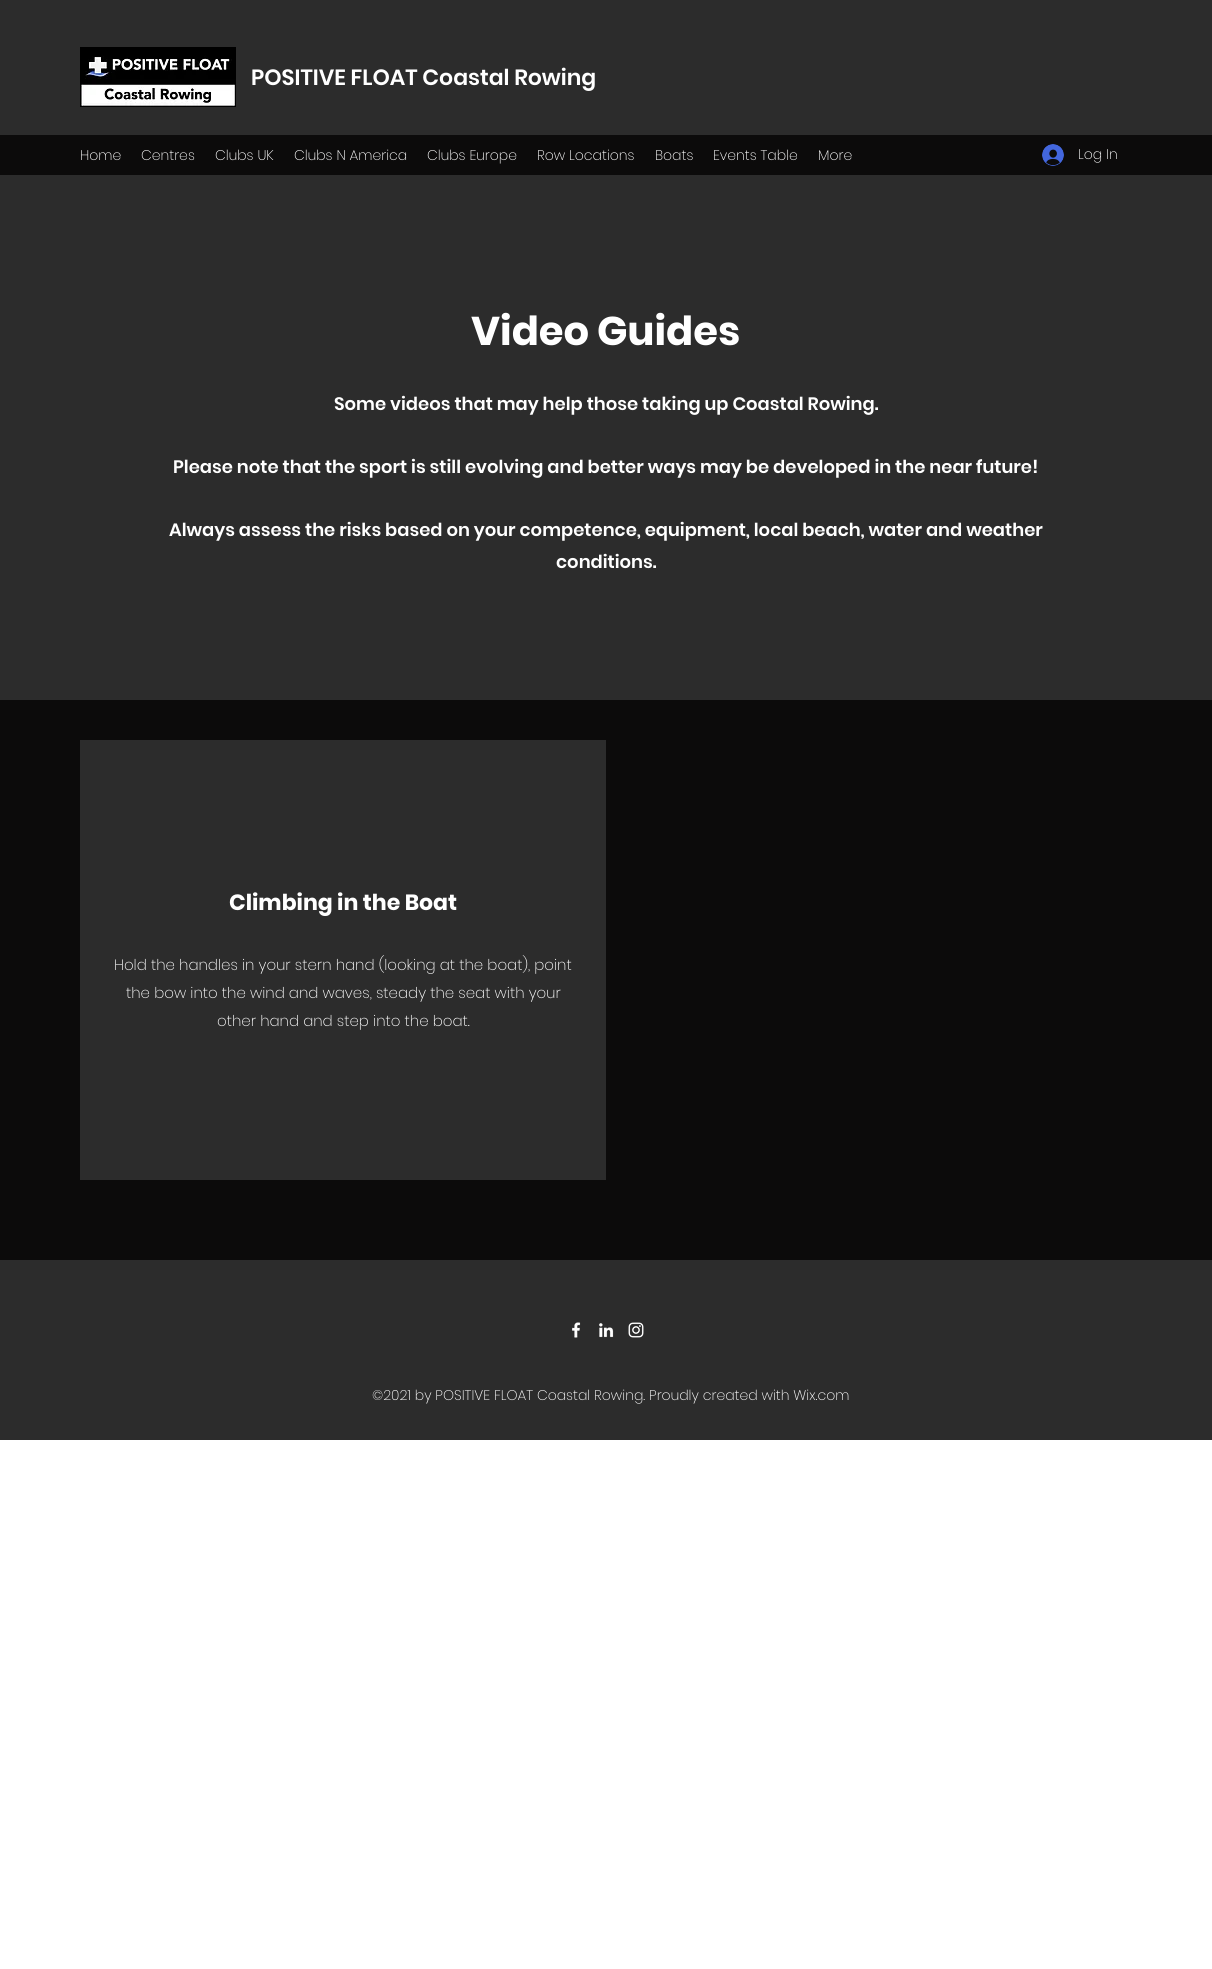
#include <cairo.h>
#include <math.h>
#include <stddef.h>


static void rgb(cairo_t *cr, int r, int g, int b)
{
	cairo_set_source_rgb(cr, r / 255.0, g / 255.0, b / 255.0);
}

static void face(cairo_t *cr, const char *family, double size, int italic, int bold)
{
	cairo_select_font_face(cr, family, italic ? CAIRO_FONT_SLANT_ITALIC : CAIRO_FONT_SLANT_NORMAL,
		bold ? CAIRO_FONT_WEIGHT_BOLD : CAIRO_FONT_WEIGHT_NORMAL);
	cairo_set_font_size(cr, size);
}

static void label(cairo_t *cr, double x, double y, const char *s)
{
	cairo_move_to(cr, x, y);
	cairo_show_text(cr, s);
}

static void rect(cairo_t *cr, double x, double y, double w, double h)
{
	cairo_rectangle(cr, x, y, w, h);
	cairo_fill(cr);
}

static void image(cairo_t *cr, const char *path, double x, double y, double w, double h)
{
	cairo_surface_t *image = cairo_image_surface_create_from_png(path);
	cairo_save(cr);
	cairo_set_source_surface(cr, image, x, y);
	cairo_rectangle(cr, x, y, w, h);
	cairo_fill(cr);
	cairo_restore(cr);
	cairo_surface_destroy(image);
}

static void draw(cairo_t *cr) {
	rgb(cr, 255, 255, 255);
	cairo_paint(cr);
	rgb(cr, 44, 44, 44);
	rect(cr, 0, 0, 1212, 700);
	image(cr, "image0.png", 80, 47, 156, 60);
	face(cr, "Poppins SemiBold", 22, 0, 0);
	rgb(cr, 255, 255, 255);
	label(cr, 251, 85, "POSITIVE FLOAT Coastal Rowing");
	rgb(cr, 12, 11, 11);
	rect(cr, 0, 135, 1212, 40);
	face(cr, "Poppins ExtraLight", 14, 0, 0);
	rgb(cr, 255, 255, 255);
	label(cr, 80, 160, "Home");
	label(cr, 141, 160, "Centres");
	label(cr, 215, 160, "Clubs UK");
	label(cr, 294, 160, "Clubs N America");
	label(cr, 427, 160, "Clubs Europe");
	label(cr, 537, 160, "Row Locations");
	label(cr, 655, 160, "Boats");
	label(cr, 713, 160, "Events Table");
	label(cr, 818, 160, "More");
	image(cr, "image1.png", 1042, 144, 22, 22);
	label(cr, 1078, 159, "Log In");
	face(cr, "Poppins", 40, 0, 1);
	label(cr, 471, 345, "Video Guides");
	face(cr, "Poppins SemiBold", 18, 0, 0);
	label(cr, 334, 410, "Some videos that may help those taking up Coastal Rowing.");
	label(cr, 173, 473, "Please note that the sport is still evolving and better ways may be developed in the near future!");
	label(cr, 169, 536, "Always assess the risks based on your competence, equipment, local beach, water and weather");
	label(cr, 556, 568, "conditions.");
	rgb(cr, 12, 11, 11);
	rect(cr, 0, 700, 1212, 560);
	rgb(cr, 44, 44, 44);
	rect(cr, 80, 740, 526, 440);
	face(cr, "Poppins", 22, 0, 1);
	rgb(cr, 255, 255, 255);
	label(cr, 229, 910, "Climbing in the Boat");
	face(cr, "Poppins ExtraLight", 15, 0, 0);
	label(cr, 114, 970, "Hold the handles in your stern hand (looking at the boat), point");
	label(cr, 126, 998, "the bow into the wind and waves, steady the seat with your");
	label(cr, 217, 1026, "other hand and step into the boat.");
	rgb(cr, 44, 44, 44);
	rect(cr, 0, 1260, 1212, 180);
	image(cr, "image2.png", 572, 1322, 9, 16);
	image(cr, "image3.png", 599, 1323, 15, 15);
	image(cr, "image4.png", 628, 1322, 16, 16);
	face(cr, "Poppins ExtraLight", 14, 0, 0);
	rgb(cr, 255, 255, 255);
	label(cr, 372, 1400, "©2021 by POSITIVE FLOAT Coastal Rowing. Proudly created with Wix.com");
}

int main(void) {
	cairo_surface_t *surface = cairo_image_surface_create(CAIRO_FORMAT_RGB24, 1212, 1969);
	cairo_t *cr = cairo_create(surface);
	cairo_font_options_t *options = cairo_font_options_create();
	cairo_font_options_set_hint_metrics(options, CAIRO_HINT_METRICS_OFF);
	cairo_font_options_set_hint_style(options, CAIRO_HINT_STYLE_NONE);
	cairo_set_font_options(cr, options);
	cairo_set_miter_limit(cr, 4);
	draw(cr);
	cairo_surface_write_to_png(surface, "render.png");
	cairo_font_options_destroy(options);
	cairo_destroy(cr);
	cairo_surface_destroy(surface);
	return 0;
}
